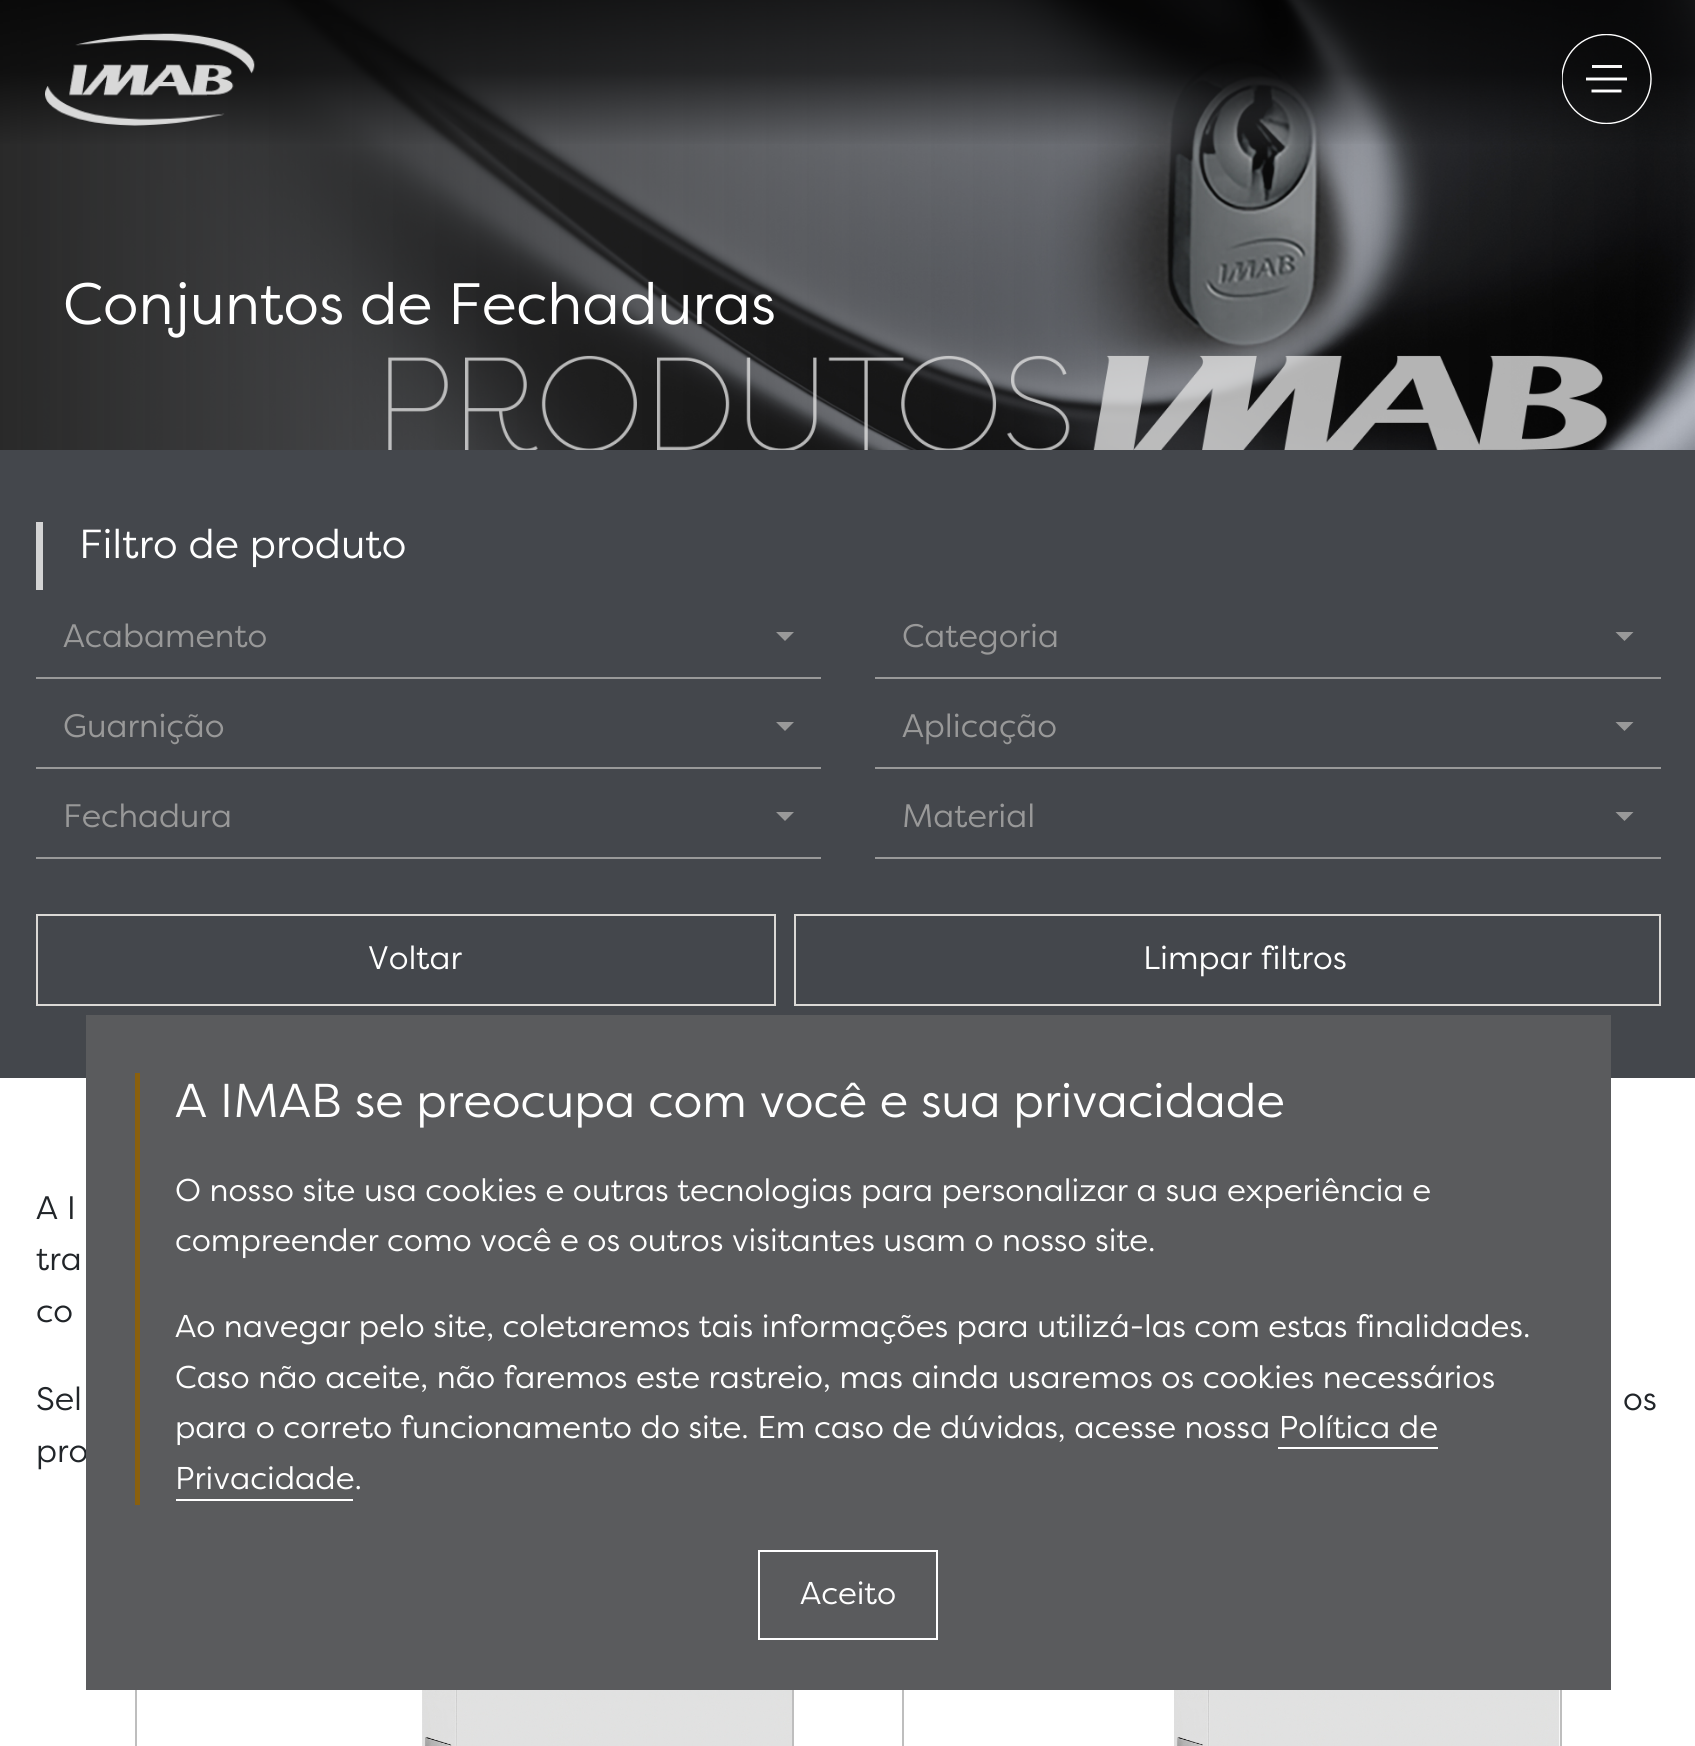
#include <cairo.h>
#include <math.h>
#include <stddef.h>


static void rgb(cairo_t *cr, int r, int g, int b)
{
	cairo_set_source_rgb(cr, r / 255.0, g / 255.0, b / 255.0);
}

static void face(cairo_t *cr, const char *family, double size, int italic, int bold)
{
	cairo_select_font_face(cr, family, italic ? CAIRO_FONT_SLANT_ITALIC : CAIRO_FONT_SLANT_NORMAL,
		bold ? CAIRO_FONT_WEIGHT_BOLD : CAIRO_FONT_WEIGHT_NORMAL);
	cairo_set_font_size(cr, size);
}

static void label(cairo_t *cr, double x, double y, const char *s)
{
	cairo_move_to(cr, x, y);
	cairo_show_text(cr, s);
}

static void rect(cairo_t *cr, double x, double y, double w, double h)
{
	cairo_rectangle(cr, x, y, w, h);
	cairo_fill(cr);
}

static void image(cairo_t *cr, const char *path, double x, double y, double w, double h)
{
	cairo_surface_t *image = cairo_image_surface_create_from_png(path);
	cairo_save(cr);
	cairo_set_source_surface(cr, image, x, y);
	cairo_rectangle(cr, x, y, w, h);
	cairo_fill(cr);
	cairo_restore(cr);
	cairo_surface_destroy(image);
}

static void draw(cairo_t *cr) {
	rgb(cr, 255, 255, 255);
	cairo_paint(cr);
	image(cr, "image1.png", 0, 0, 1695, 450);
	image(cr, "image0.png", 45, 33, 210, 93);
	cairo_save(cr);
	cairo_rectangle(cr, 1562, 34, 90, 90);
	cairo_clip(cr);
	cairo_arc(cr, 1606.5, 79, 44.5, 0, 2 * M_PI);
	rgb(cr, 255, 255, 255);
	cairo_set_line_width(cr, 1.4);
	cairo_stroke(cr);
	cairo_restore(cr);
	rgb(cr, 247, 247, 247);
	rect(cr, 1592, 65, 30, 3);
	cairo_new_path(cr);
	cairo_move_to(cr, 1586, 79);
	cairo_line_to(cr, 1627, 79);
	cairo_move_to(cr, 1591.5, 91);
	cairo_line_to(cr, 1621.5, 91);
	rgb(cr, 255, 255, 255);
	cairo_set_line_width(cr, 2.9);
	cairo_stroke(cr);
	image(cr, "image2.png", 388, 355, 1219, 95);
	face(cr, "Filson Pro", 58.25, 0, 0);
	label(cr, 63, 324, "Conjuntos de Fechaduras");
	rgb(cr, 68, 71, 76);
	rect(cr, 0, 450, 1695, 628);
	rgb(cr, 212, 212, 212);
	rect(cr, 36, 522, 7, 68);
	face(cr, "Filson Pro", 40.5, 0, 0);
	rgb(cr, 255, 255, 255);
	label(cr, 79, 558, "Filtro de produto");
	rgb(cr, 153, 153, 153);
	rect(cr, 36, 677, 785, 2);
	face(cr, "Filson Pro", 32.5, 0, 0);
	label(cr, 63, 647, "Acabamento");
	cairo_new_path(cr);
	cairo_move_to(cr, 776, 632);
	cairo_line_to(cr, 794, 632);
	cairo_line_to(cr, 785, 641);
	cairo_close_path(cr);
	cairo_fill(cr);
	rect(cr, 875, 677, 786, 2);
	label(cr, 902, 647, "Categoria");
	cairo_new_path(cr);
	cairo_move_to(cr, 1615.5, 632);
	cairo_line_to(cr, 1633.5, 632);
	cairo_line_to(cr, 1624.5, 641);
	cairo_close_path(cr);
	cairo_fill(cr);
	rect(cr, 36, 767, 785, 2);
	label(cr, 63, 737, "Guarnição");
	cairo_new_path(cr);
	cairo_move_to(cr, 776, 722);
	cairo_line_to(cr, 794, 722);
	cairo_line_to(cr, 785, 731);
	cairo_close_path(cr);
	cairo_fill(cr);
	rect(cr, 875, 767, 786, 2);
	label(cr, 902, 737, "Aplicação");
	cairo_new_path(cr);
	cairo_move_to(cr, 1615.5, 722);
	cairo_line_to(cr, 1633.5, 722);
	cairo_line_to(cr, 1624.5, 731);
	cairo_close_path(cr);
	cairo_fill(cr);
	rect(cr, 36, 857, 785, 2);
	label(cr, 63, 827, "Fechadura");
	cairo_new_path(cr);
	cairo_move_to(cr, 776, 812);
	cairo_line_to(cr, 794, 812);
	cairo_line_to(cr, 785, 821);
	cairo_close_path(cr);
	cairo_fill(cr);
	rect(cr, 875, 857, 786, 2);
	label(cr, 902, 827, "Material");
	cairo_new_path(cr);
	cairo_move_to(cr, 1615.5, 812);
	cairo_line_to(cr, 1633.5, 812);
	cairo_line_to(cr, 1624.5, 821);
	cairo_close_path(cr);
	cairo_fill(cr);
	cairo_rectangle(cr, 37, 915, 738, 90);
	rgb(cr, 219, 217, 214);
	cairo_set_line_width(cr, 2);
	cairo_stroke(cr);
	rgb(cr, 255, 255, 255);
	label(cr, 368, 969, "Voltar");
	cairo_rectangle(cr, 795, 915, 865, 90);
	rgb(cr, 219, 217, 214);
	cairo_stroke(cr);
	rgb(cr, 255, 255, 255);
	label(cr, 1143, 969, "Limpar filtros");
	rgb(cr, 33, 37, 41);
	label(cr, 36, 1219, "A I");
	label(cr, 36, 1270, "tra");
	label(cr, 36, 1322, "co");
	label(cr, 36, 1410, "Sel");
	label(cr, 1623, 1410, "os");
	label(cr, 36, 1462, "pro");
	cairo_rectangle(cr, 136, 1594, 657, 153);
	rgb(cr, 190, 190, 190);
	cairo_stroke(cr);
	image(cr, "image3.png", 422, 1690, 370, 56);
	cairo_rectangle(cr, 903, 1594, 658, 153);
	cairo_stroke(cr);
	image(cr, "image4.png", 1174, 1690, 386, 56);
	rgb(cr, 90, 91, 93);
	rect(cr, 86, 1015, 1525, 675);
	rgb(cr, 138, 96, 14);
	rect(cr, 135, 1073, 5, 432);
	face(cr, "Filson Pro", 47.4, 0, 0);
	rgb(cr, 255, 255, 255);
	label(cr, 175, 1117, "A IMAB se preocupa com você e sua privacidade");
	face(cr, "Filson Pro", 31.5, 0, 0);
	label(cr, 175, 1201, "O nosso site usa cookies e outras tecnologias para personalizar a sua experiência e");
	label(cr, 175, 1251, "compreender como você e os outros visitantes usam o nosso site.");
	label(cr, 175, 1337, "Ao navegar pelo site, coletaremos tais informações para utilizá-las com estas finalidades.");
	label(cr, 175, 1388, "Caso não aceite, não faremos este rastreio, mas ainda usaremos os cookies necessários");
	label(cr, 175, 1438, "para o correto funcionamento do site. Em caso de dúvidas, acesse nossa Política de");
	label(cr, 175, 1489, "Privacidade.");
	rect(cr, 1278, 1447, 160, 2);
	rect(cr, 176, 1499, 177, 2);
	cairo_rectangle(cr, 759, 1551, 178, 88);
	cairo_stroke(cr);
	label(cr, 800, 1604, "Aceito");
}

int main(void) {
	cairo_surface_t *surface = cairo_image_surface_create(CAIRO_FORMAT_RGB24, 1695, 1746);
	cairo_t *cr = cairo_create(surface);
	cairo_font_options_t *options = cairo_font_options_create();
	cairo_font_options_set_hint_metrics(options, CAIRO_HINT_METRICS_OFF);
	cairo_font_options_set_hint_style(options, CAIRO_HINT_STYLE_NONE);
	cairo_set_font_options(cr, options);
	cairo_set_miter_limit(cr, 4);
	draw(cr);
	cairo_surface_write_to_png(surface, "render.png");
	cairo_font_options_destroy(options);
	cairo_destroy(cr);
	cairo_surface_destroy(surface);
	return 0;
}
